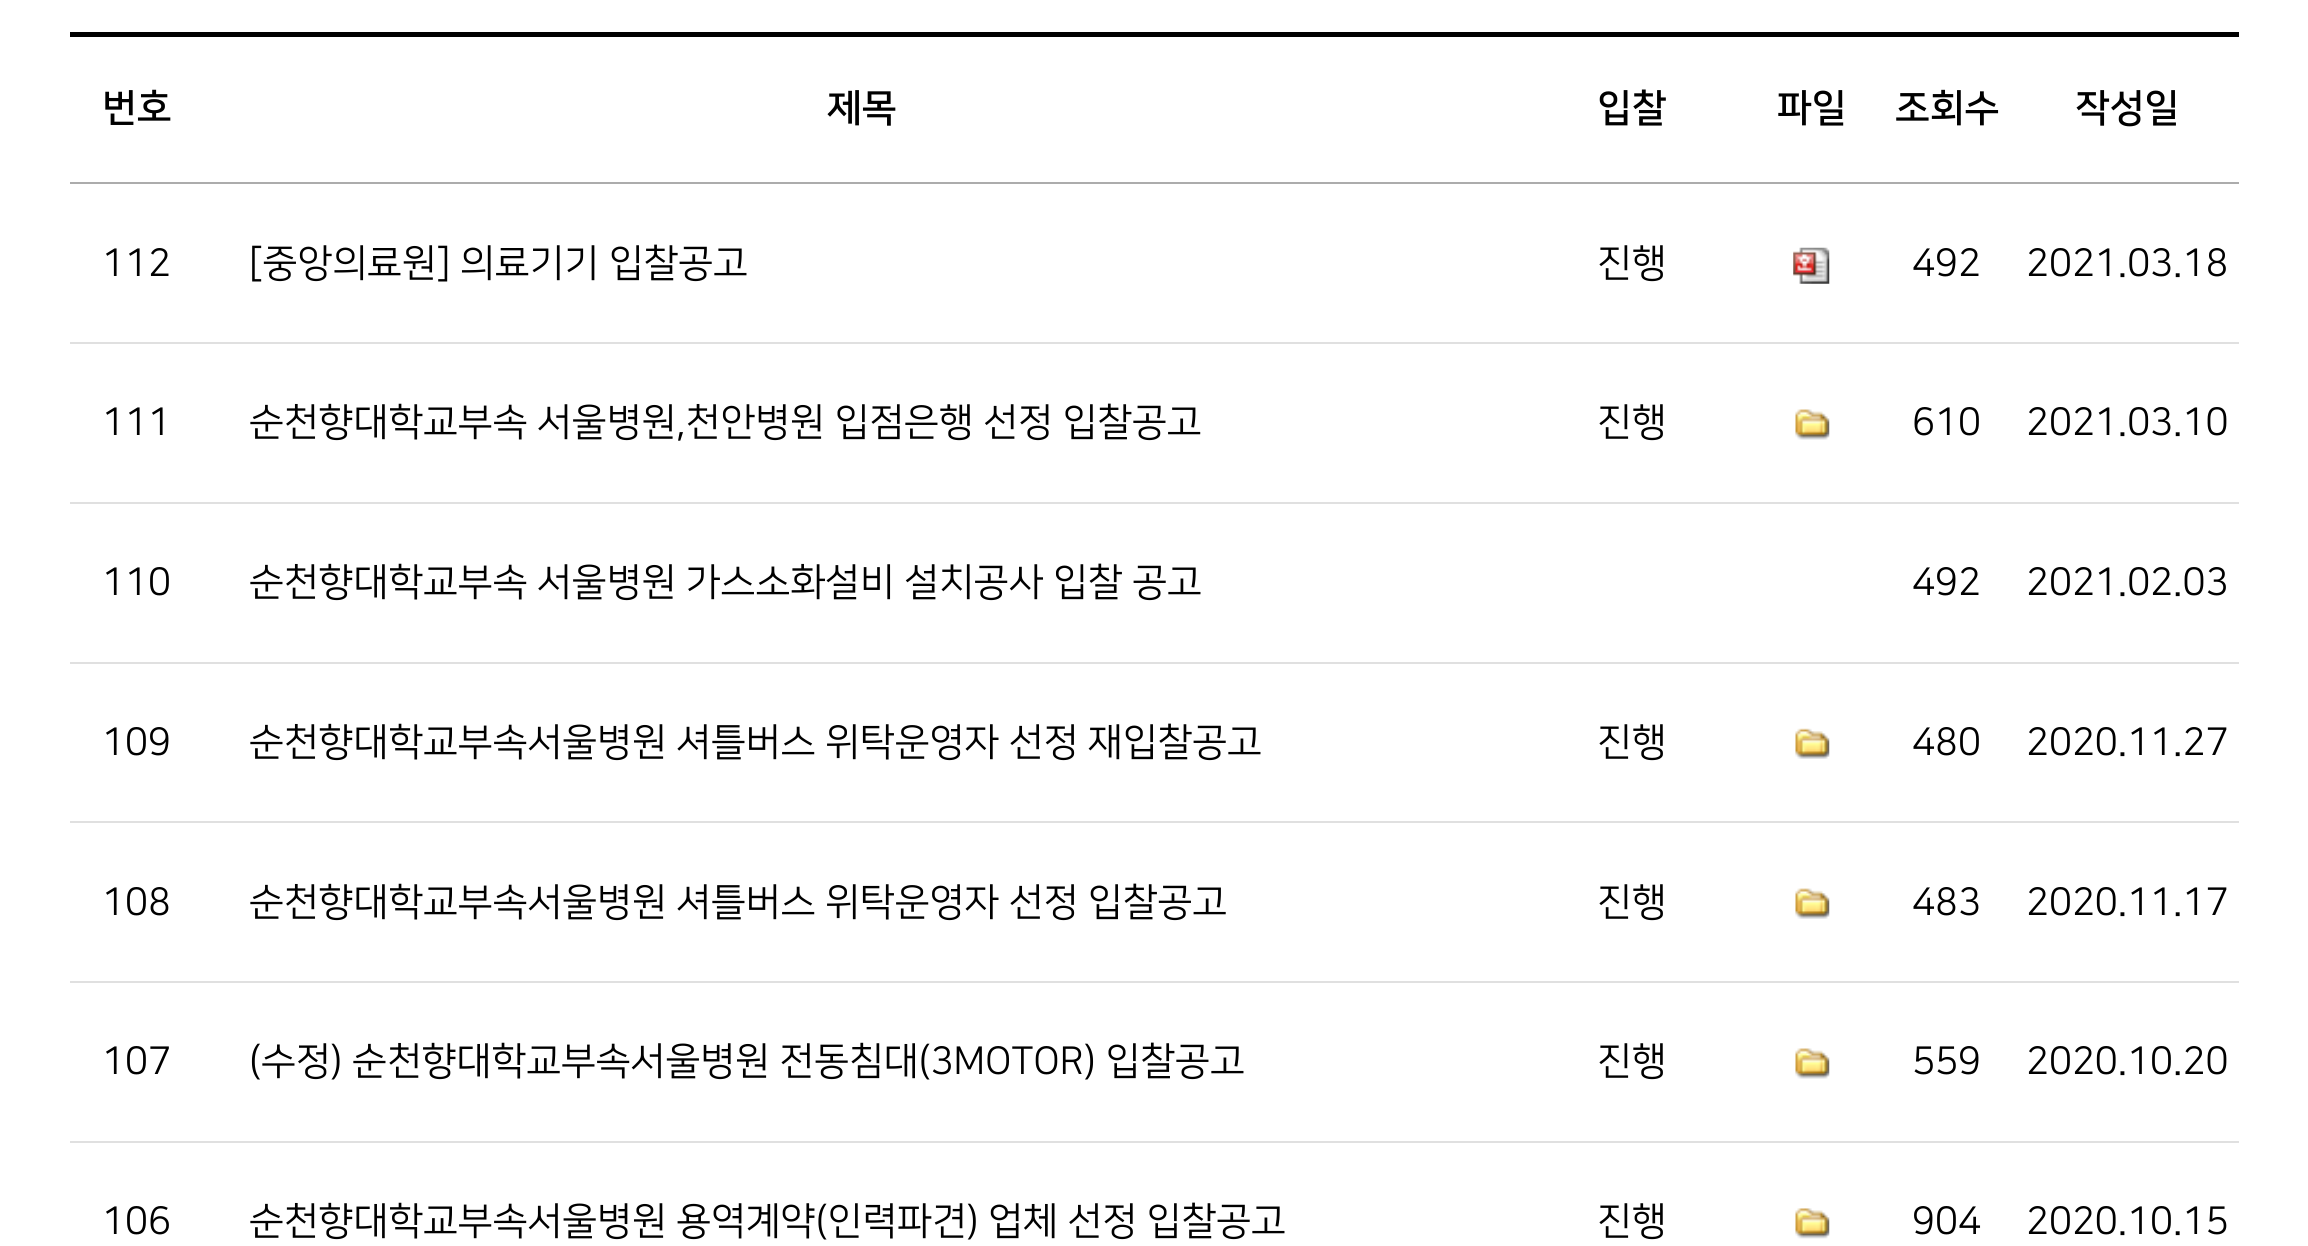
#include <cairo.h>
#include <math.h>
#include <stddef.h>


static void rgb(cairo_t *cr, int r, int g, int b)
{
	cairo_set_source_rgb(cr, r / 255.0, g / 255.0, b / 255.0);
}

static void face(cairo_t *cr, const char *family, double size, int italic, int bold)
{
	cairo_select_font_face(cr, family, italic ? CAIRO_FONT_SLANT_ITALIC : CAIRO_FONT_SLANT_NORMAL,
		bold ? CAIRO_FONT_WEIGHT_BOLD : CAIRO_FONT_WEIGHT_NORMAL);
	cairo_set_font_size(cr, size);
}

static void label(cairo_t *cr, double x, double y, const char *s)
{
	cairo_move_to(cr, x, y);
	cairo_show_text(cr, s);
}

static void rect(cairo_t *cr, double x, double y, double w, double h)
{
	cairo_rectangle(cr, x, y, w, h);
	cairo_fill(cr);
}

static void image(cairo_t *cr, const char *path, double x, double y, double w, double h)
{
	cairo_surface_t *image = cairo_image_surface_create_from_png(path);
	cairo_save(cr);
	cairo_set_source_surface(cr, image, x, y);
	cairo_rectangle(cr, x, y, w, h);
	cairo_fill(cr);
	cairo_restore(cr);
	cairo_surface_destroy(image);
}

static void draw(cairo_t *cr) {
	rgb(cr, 255, 255, 255);
	cairo_paint(cr);
	rgb(cr, 0, 0, 0);
	rect(cr, 70, 32, 2169, 5);
	rgb(cr, 172, 172, 172);
	rect(cr, 70, 182, 2169, 2);
	face(cr, "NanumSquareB", 38.25, 0, 1);
	rgb(cr, 0, 0, 0);
	label(cr, 102, 120, "번호");
	label(cr, 827, 120, "제목");
	label(cr, 1597, 120, "입찰");
	label(cr, 1777, 120, "파일");
	label(cr, 1895, 120, "조회수");
	label(cr, 2075, 120, "작성일");
	rgb(cr, 224, 224, 224);
	rect(cr, 70, 342, 2169, 2);
	face(cr, "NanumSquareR", 38.25, 0, 0);
	rgb(cr, 0, 0, 0);
	label(cr, 102, 275, "112");
	label(cr, 249, 275, "[중앙의료원] 의료기기 입찰공고");
	label(cr, 1597, 275, "진행");
	image(cr, "image0.png", 1793, 247, 37, 37);
	label(cr, 1912, 275, "492");
	label(cr, 2026, 275, "2021.03.18");
	rgb(cr, 224, 224, 224);
	rect(cr, 70, 502, 2169, 2);
	rgb(cr, 0, 0, 0);
	label(cr, 102, 434, "111");
	label(cr, 249, 434, "순천향대학교부속 서울병원,천안병원 입점은행 선정 입찰공고");
	label(cr, 1597, 434, "진행");
	image(cr, "image1.png", 1795, 409, 35, 31);
	label(cr, 1912, 434, "610");
	label(cr, 2026, 434, "2021.03.10");
	rgb(cr, 224, 224, 224);
	rect(cr, 70, 662, 2169, 2);
	rgb(cr, 0, 0, 0);
	label(cr, 102, 594, "110");
	label(cr, 249, 594, "순천향대학교부속 서울병원 가스소화설비 설치공사 입찰 공고");
	label(cr, 1912, 594, "492");
	label(cr, 2026, 594, "2021.02.03");
	rgb(cr, 224, 224, 224);
	rect(cr, 70, 821, 2169, 2);
	rgb(cr, 0, 0, 0);
	label(cr, 102, 754, "109");
	label(cr, 249, 754, "순천향대학교부속서울병원 셔틀버스 위탁운영자 선정 재입찰공고");
	label(cr, 1597, 754, "진행");
	image(cr, "image2.png", 1795, 728, 35, 31);
	label(cr, 1912, 754, "480");
	label(cr, 2026, 754, "2020.11.27");
	rgb(cr, 224, 224, 224);
	rect(cr, 70, 981, 2169, 2);
	rgb(cr, 0, 0, 0);
	label(cr, 102, 914, "108");
	label(cr, 249, 914, "순천향대학교부속서울병원 셔틀버스 위탁운영자 선정 입찰공고");
	label(cr, 1597, 914, "진행");
	image(cr, "image3.png", 1795, 888, 35, 31);
	label(cr, 1912, 914, "483");
	label(cr, 2026, 914, "2020.11.17");
	rgb(cr, 224, 224, 224);
	rect(cr, 70, 1141, 2169, 2);
	rgb(cr, 0, 0, 0);
	label(cr, 102, 1073, "107");
	label(cr, 249, 1073, "(수정) 순천향대학교부속서울병원 전동침대(3MOTOR) 입찰공고");
	label(cr, 1597, 1073, "진행");
	image(cr, "image1.png", 1795, 1048, 35, 31);
	label(cr, 1912, 1073, "559");
	label(cr, 2026, 1073, "2020.10.20");
	label(cr, 102, 1233, "106");
	label(cr, 249, 1233, "순천향대학교부속서울병원 용역계약(인력파견) 업체 선정 입찰공고");
	label(cr, 1597, 1233, "진행");
	image(cr, "image4.png", 1795, 1208, 35, 31);
	label(cr, 1912, 1233, "904");
	label(cr, 2026, 1233, "2020.10.15");
}

int main(void) {
	cairo_surface_t *surface = cairo_image_surface_create(CAIRO_FORMAT_RGB24, 2308, 1246);
	cairo_t *cr = cairo_create(surface);
	cairo_font_options_t *options = cairo_font_options_create();
	cairo_font_options_set_hint_metrics(options, CAIRO_HINT_METRICS_OFF);
	cairo_font_options_set_hint_style(options, CAIRO_HINT_STYLE_NONE);
	cairo_set_font_options(cr, options);
	cairo_set_miter_limit(cr, 4);
	draw(cr);
	cairo_surface_write_to_png(surface, "render.png");
	cairo_font_options_destroy(options);
	cairo_destroy(cr);
	cairo_surface_destroy(surface);
	return 0;
}
